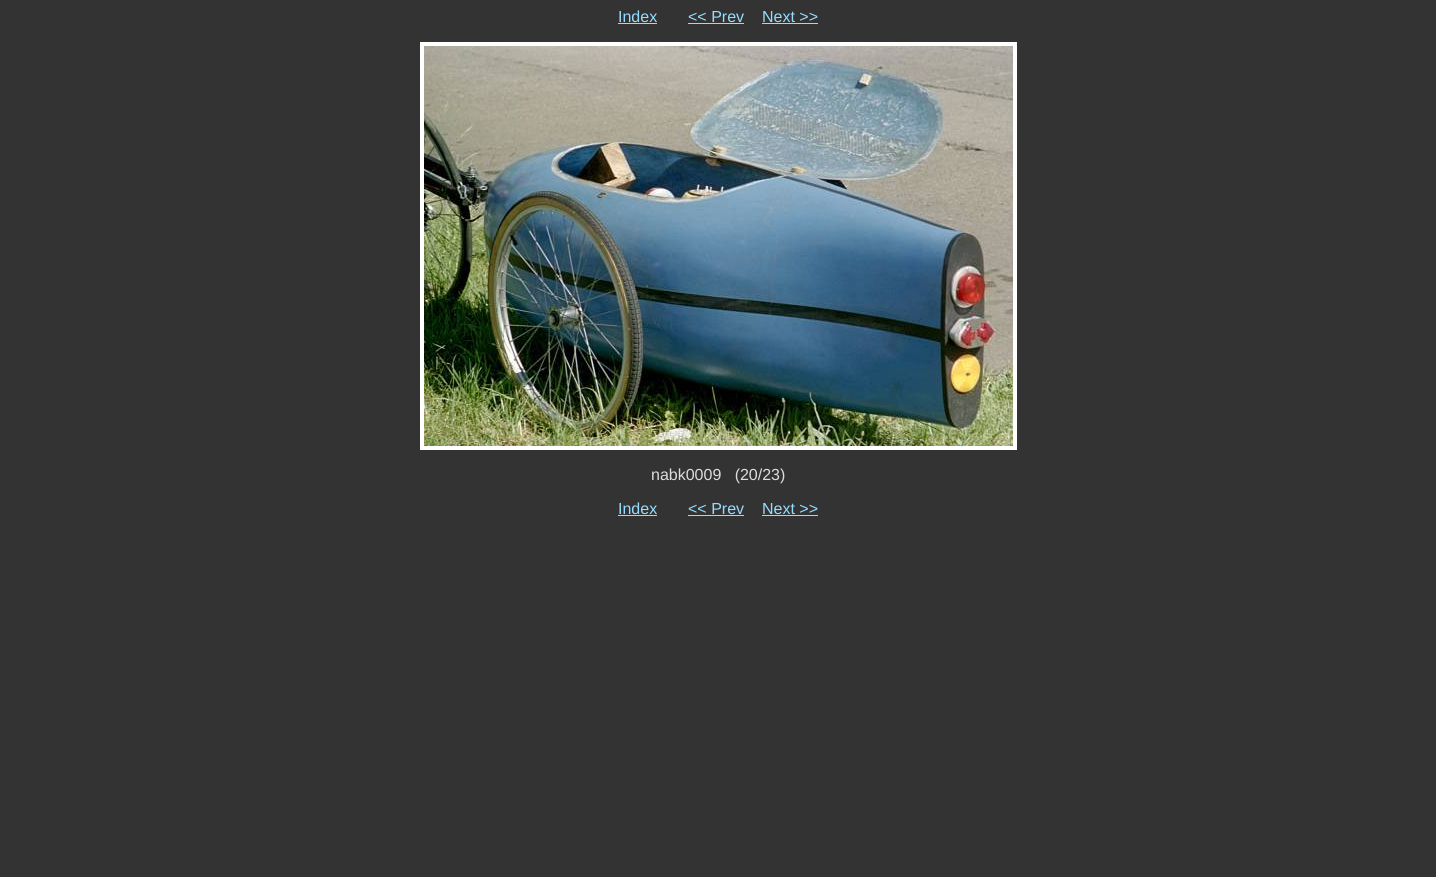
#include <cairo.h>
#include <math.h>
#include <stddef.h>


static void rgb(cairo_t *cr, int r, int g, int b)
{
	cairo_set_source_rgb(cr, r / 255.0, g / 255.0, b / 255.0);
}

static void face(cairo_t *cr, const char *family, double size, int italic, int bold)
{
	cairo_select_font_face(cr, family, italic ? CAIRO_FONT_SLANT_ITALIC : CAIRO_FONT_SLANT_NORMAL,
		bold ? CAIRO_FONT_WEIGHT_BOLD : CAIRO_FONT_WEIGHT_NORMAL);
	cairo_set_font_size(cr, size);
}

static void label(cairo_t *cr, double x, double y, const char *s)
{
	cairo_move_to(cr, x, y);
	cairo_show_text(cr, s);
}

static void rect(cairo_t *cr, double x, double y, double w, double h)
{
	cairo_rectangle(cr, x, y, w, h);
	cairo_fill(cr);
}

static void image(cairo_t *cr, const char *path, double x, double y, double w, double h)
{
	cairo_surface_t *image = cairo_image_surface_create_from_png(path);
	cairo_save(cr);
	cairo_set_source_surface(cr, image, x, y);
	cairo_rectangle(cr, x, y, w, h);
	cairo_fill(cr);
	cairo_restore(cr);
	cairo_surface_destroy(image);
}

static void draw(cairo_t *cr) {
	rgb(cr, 51, 51, 51);
	cairo_paint(cr);
	face(cr, "Liberation Sans", 16, 0, 0);
	rgb(cr, 149, 221, 255);
	label(cr, 618, 22, "Index");
	rect(cr, 618, 23, 39, 1);
	label(cr, 688, 22, "<< Prev");
	rect(cr, 688, 23, 56, 1);
	label(cr, 762, 22, "Next >>");
	rect(cr, 762, 23, 56, 1);
	rgb(cr, 255, 255, 255);
	rect(cr, 420, 42, 597, 408);
	image(cr, "image0.png", 424, 46, 589, 400);
	rgb(cr, 221, 221, 221);
	label(cr, 651, 480, "nabk0009   (20/23)");
	rgb(cr, 149, 221, 255);
	label(cr, 618, 514, "Index");
	rect(cr, 618, 515, 39, 1);
	label(cr, 688, 514, "<< Prev");
	rect(cr, 688, 515, 56, 1);
	label(cr, 762, 514, "Next >>");
	rect(cr, 762, 515, 56, 1);
}

int main(void) {
	cairo_surface_t *surface = cairo_image_surface_create(CAIRO_FORMAT_RGB24, 1436, 877);
	cairo_t *cr = cairo_create(surface);
	cairo_font_options_t *options = cairo_font_options_create();
	cairo_font_options_set_hint_metrics(options, CAIRO_HINT_METRICS_OFF);
	cairo_font_options_set_hint_style(options, CAIRO_HINT_STYLE_NONE);
	cairo_set_font_options(cr, options);
	cairo_set_miter_limit(cr, 4);
	draw(cr);
	cairo_surface_write_to_png(surface, "render.png");
	cairo_font_options_destroy(options);
	cairo_destroy(cr);
	cairo_surface_destroy(surface);
	return 0;
}
